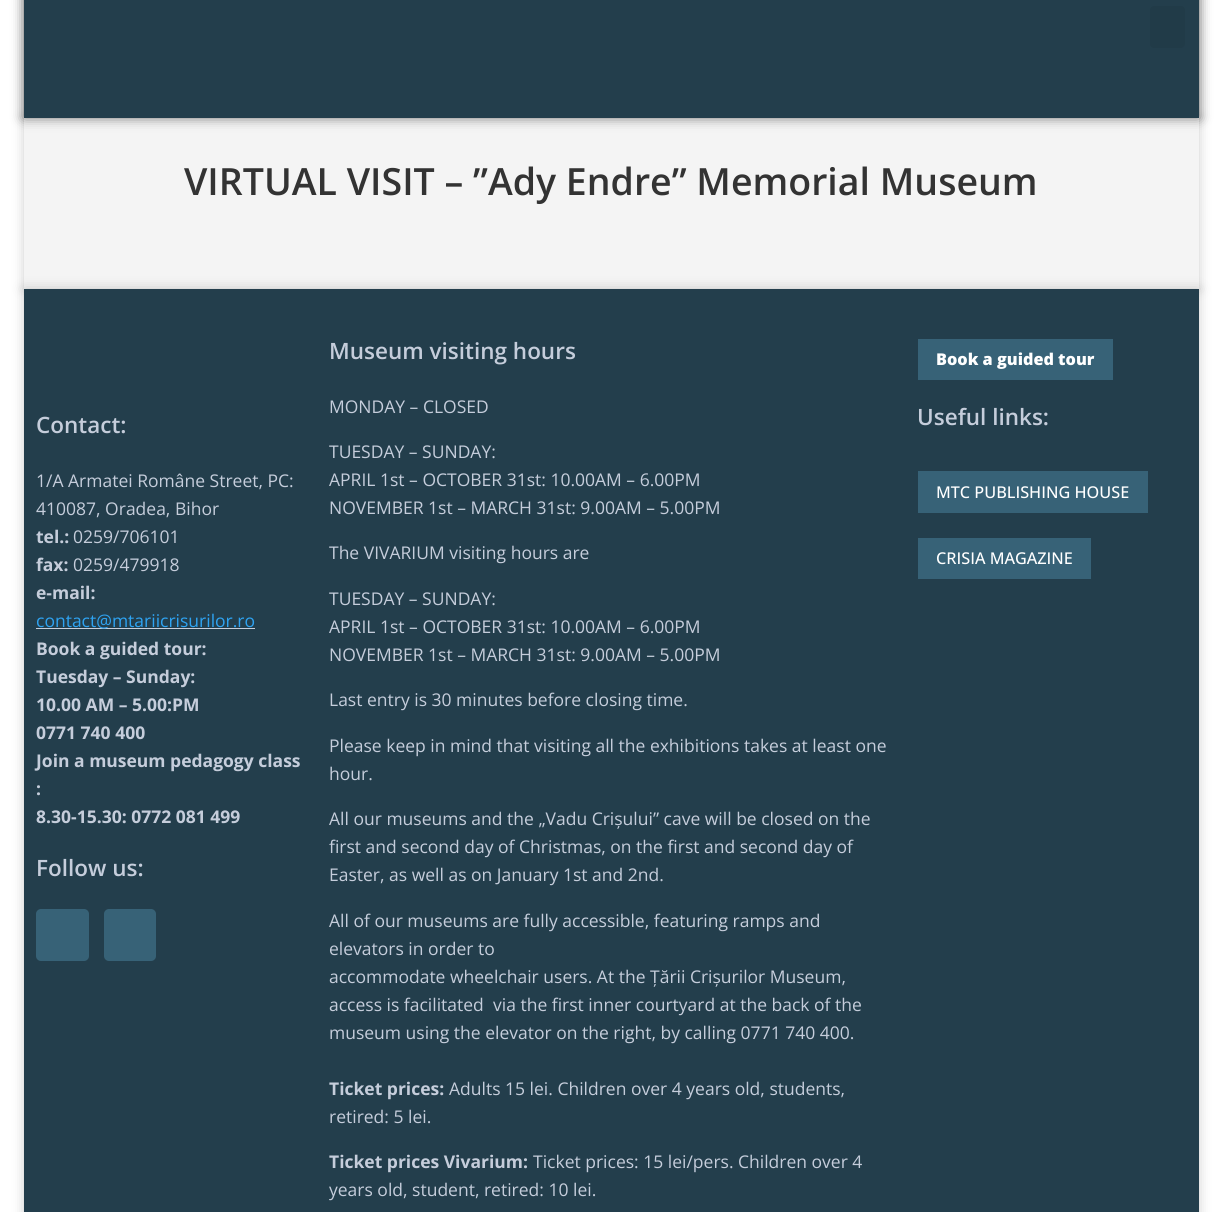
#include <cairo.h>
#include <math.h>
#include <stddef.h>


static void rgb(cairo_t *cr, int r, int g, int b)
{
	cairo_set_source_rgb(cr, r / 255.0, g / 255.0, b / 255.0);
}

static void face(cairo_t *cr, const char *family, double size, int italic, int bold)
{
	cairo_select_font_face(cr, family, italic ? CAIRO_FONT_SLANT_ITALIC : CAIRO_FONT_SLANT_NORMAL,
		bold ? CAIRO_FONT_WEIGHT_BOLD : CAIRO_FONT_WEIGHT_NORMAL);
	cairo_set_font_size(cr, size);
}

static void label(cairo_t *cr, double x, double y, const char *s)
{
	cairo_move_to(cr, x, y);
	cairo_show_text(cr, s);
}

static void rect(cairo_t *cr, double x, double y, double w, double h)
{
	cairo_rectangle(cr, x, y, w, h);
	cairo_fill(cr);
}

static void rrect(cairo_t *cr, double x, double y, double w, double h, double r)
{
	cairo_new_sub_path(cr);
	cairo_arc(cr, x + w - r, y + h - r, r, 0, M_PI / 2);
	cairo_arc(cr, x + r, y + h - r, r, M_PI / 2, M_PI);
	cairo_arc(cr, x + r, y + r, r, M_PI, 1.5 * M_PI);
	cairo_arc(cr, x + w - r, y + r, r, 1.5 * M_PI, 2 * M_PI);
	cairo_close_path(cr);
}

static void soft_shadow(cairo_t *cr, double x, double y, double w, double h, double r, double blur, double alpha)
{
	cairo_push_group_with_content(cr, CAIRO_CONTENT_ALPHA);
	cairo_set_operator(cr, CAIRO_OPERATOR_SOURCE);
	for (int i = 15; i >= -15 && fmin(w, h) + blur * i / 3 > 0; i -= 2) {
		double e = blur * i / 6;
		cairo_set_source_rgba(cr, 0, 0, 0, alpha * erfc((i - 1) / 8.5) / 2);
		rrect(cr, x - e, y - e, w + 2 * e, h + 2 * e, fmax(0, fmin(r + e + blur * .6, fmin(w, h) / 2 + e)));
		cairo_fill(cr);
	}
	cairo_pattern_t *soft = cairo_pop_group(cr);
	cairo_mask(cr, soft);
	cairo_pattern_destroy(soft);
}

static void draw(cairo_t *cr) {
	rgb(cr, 255, 255, 255);
	cairo_paint(cr);
	rgb(cr, 0, 0, 0);
	soft_shadow(cr, 24, -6, 1175, 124, 0, 6, 0.2);
	soft_shadow(cr, 24, 118, 1175, 171, 0, 6, 0.2);
	rgb(cr, 244, 244, 244);
	rect(cr, 24, 118, 1175, 171);
	rgb(cr, 0, 0, 0);
	soft_shadow(cr, 24, -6, 1175, 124, 0, 6, 0.5);
	rgb(cr, 35, 62, 76);
	rect(cr, 24, 0, 1175, 118);
	rgb(cr, 33, 59, 72);
	rrect(cr, 1150, 6, 35, 42, 4);
	cairo_fill(cr);
	face(cr, "Open Sans SemiBold", 37.5, 0, 0);
	rgb(cr, 51, 51, 51);
	label(cr, 184, 195, "VIRTUAL VISIT – ”Ady Endre” Memorial Museum");
	rgb(cr, 0, 0, 0);
	soft_shadow(cr, 24, 289, 1175, 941, 0, 6, 0.2);
	rgb(cr, 35, 62, 76);
	rect(cr, 24, 289, 1175, 923);
	face(cr, "Open Sans SemiBold", 22.5, 0, 0);
	rgb(cr, 197, 205, 219);
	label(cr, 36, 433, "Contact:");
	face(cr, "Open Sans", 17.5, 0, 0);
	label(cr, 36, 487, "1/A Armatei Române Street, PC:");
	label(cr, 36, 515, "410087, Oradea, Bihor");
	face(cr, "Open Sans", 17.5, 0, 1);
	label(cr, 36, 543, "tel.:");
	face(cr, "Open Sans", 17.5, 0, 0);
	label(cr, 73, 543, "0259/706101");
	face(cr, "Open Sans", 17.5, 0, 1);
	label(cr, 36, 571, "fax:");
	face(cr, "Open Sans", 17.5, 0, 0);
	label(cr, 73, 571, "0259/479918");
	face(cr, "Open Sans", 17.5, 0, 1);
	label(cr, 36, 599, "e-mail:");
	rect(cr, 36, 628, 219, 1);
	face(cr, "Open Sans", 17.5, 0, 0);
	rgb(cr, 46, 163, 242);
	label(cr, 36, 627, "contact@mtariicrisurilor.ro");
	face(cr, "Open Sans", 17.5, 0, 1);
	rgb(cr, 197, 205, 219);
	label(cr, 36, 655, "Book a guided tour:");
	label(cr, 36, 683, "Tuesday – Sunday:");
	label(cr, 36, 711, "10.00 AM – 5.00:PM");
	label(cr, 36, 739, "0771 740 400");
	label(cr, 36, 767, "Join a museum pedagogy class");
	label(cr, 36, 795, ":");
	label(cr, 36, 823, "8.30-15.30: 0772 081 499");
	face(cr, "Open Sans SemiBold", 22.5, 0, 0);
	label(cr, 36, 876, "Follow us:");
	rgb(cr, 55, 98, 119);
	rrect(cr, 36, 909, 53, 52, 5);
	cairo_fill(cr);
	rrect(cr, 104, 909, 52, 52, 5);
	cairo_fill(cr);
	rgb(cr, 197, 205, 219);
	label(cr, 329, 359, "Museum visiting hours");
	face(cr, "Open Sans", 17.5, 0, 0);
	label(cr, 329, 413, "MONDAY – CLOSED");
	label(cr, 329, 458, "TUESDAY – SUNDAY:");
	label(cr, 329, 486, "APRIL 1st – OCTOBER 31st: 10.00AM – 6.00PM");
	label(cr, 329, 514, "NOVEMBER 1st – MARCH 31st: 9.00AM – 5.00PM");
	label(cr, 329, 559, "The VIVARIUM visiting hours are");
	label(cr, 329, 605, "TUESDAY – SUNDAY:");
	label(cr, 329, 633, "APRIL 1st – OCTOBER 31st: 10.00AM – 6.00PM");
	label(cr, 329, 661, "NOVEMBER 1st – MARCH 31st: 9.00AM – 5.00PM");
	label(cr, 329, 706, "Last entry is 30 minutes before closing time.");
	label(cr, 329, 752, "Please keep in mind that visiting all the exhibitions takes at least one");
	label(cr, 329, 780, "hour.");
	label(cr, 329, 825, "All our museums and the „Vadu Crișului” cave will be closed on the");
	label(cr, 329, 853, "first and second day of Christmas, on the first and second day of");
	label(cr, 329, 881, "Easter, as well as on January 1st and 2nd.");
	label(cr, 329, 927, "All of our museums are fully accessible, featuring ramps and");
	label(cr, 329, 955, "elevators in order to");
	label(cr, 329, 983, "accommodate wheelchair users. At the Țării Crișurilor Museum,");
	label(cr, 329, 1011, "access is facilitated");
	label(cr, 493, 1011, "via the first inner courtyard at the back of the");
	label(cr, 329, 1039, "museum using the elevator on the right, by calling 0771 740 400.");
	face(cr, "Open Sans", 17.5, 0, 1);
	label(cr, 329, 1095, "Ticket prices:");
	face(cr, "Open Sans", 17.5, 0, 0);
	label(cr, 449, 1095, "Adults 15 lei. Children over 4 years old, students,");
	label(cr, 329, 1123, "retired: 5 lei.");
	face(cr, "Open Sans", 17.5, 0, 1);
	label(cr, 329, 1168, "Ticket prices Vivarium:");
	face(cr, "Open Sans", 17.5, 0, 0);
	label(cr, 533, 1168, "Ticket prices: 15 lei/pers. Children over 4");
	label(cr, 329, 1196, "years old, student, retired: 10 lei.");
	rgb(cr, 55, 98, 119);
	rect(cr, 918, 339, 195, 41);
	face(cr, "Open Sans ExtraBold", 16.25, 0, 0);
	rgb(cr, 255, 255, 255);
	label(cr, 936, 365, "Book a guided tour");
	face(cr, "Open Sans SemiBold", 22.5, 0, 0);
	rgb(cr, 197, 205, 219);
	label(cr, 917, 425, "Useful links:");
	rgb(cr, 55, 98, 119);
	rect(cr, 918, 471, 230, 42);
	face(cr, "Open Sans Medium", 16.25, 0, 0);
	rgb(cr, 255, 255, 255);
	label(cr, 936, 498, "MTC PUBLISHING HOUSE");
	rgb(cr, 55, 98, 119);
	rect(cr, 918, 538, 173, 41);
	rgb(cr, 255, 255, 255);
	label(cr, 936, 564, "CRISIA MAGAZINE");
}

int main(void) {
	cairo_surface_t *surface = cairo_image_surface_create(CAIRO_FORMAT_RGB24, 1221, 1212);
	cairo_t *cr = cairo_create(surface);
	cairo_font_options_t *options = cairo_font_options_create();
	cairo_font_options_set_hint_metrics(options, CAIRO_HINT_METRICS_OFF);
	cairo_font_options_set_hint_style(options, CAIRO_HINT_STYLE_NONE);
	cairo_set_font_options(cr, options);
	cairo_set_miter_limit(cr, 4);
	draw(cr);
	cairo_surface_write_to_png(surface, "render.png");
	cairo_font_options_destroy(options);
	cairo_destroy(cr);
	cairo_surface_destroy(surface);
	return 0;
}
